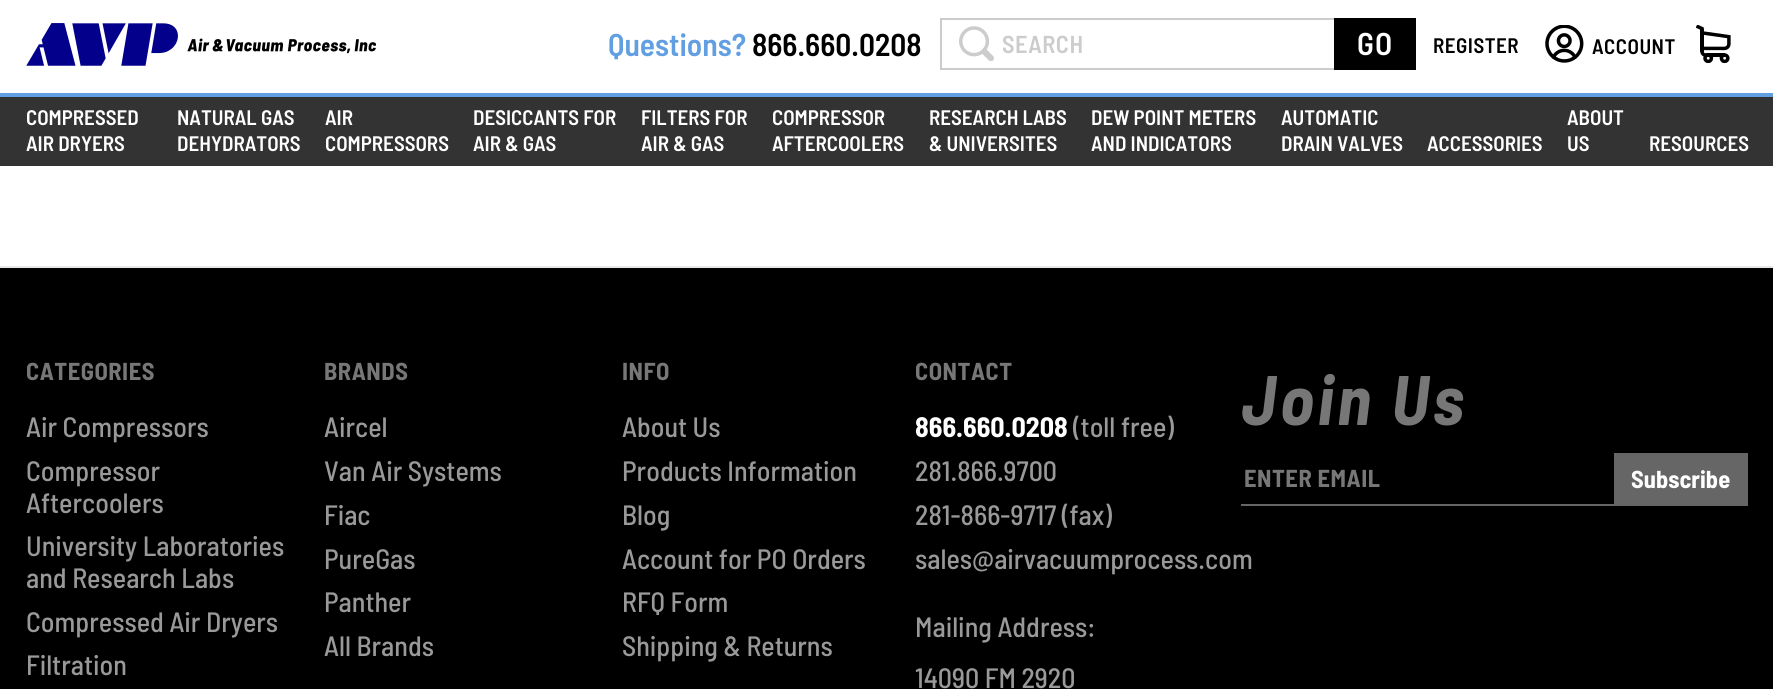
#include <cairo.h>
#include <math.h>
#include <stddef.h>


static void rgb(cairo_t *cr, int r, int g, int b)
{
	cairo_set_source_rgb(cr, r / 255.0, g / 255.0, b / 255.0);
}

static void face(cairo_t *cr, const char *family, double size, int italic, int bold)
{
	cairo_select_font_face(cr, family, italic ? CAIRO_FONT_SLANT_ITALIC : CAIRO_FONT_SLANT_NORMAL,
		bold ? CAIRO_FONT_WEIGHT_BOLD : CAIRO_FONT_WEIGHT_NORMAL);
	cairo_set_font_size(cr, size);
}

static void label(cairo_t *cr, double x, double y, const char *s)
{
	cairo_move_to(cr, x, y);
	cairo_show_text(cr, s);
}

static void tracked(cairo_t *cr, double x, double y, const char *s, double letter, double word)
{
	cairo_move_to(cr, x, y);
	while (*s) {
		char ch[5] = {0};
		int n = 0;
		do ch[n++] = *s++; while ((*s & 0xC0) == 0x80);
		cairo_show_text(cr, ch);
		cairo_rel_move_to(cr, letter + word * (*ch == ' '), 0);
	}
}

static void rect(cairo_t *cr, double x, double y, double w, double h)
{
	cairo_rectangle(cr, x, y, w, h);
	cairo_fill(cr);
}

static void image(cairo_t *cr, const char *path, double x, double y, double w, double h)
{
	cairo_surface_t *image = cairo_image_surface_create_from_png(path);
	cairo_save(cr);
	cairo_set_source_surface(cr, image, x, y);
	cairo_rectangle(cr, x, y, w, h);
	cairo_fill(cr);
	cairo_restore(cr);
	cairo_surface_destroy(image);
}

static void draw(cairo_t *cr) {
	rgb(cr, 255, 255, 255);
	cairo_paint(cr);
	image(cr, "image0.png", 26, 23, 350, 43);
	face(cr, "Barlow Semi Condensed SemiBold", 31.5, 0, 0);
	rgb(cr, 97, 159, 226);
	label(cr, 608, 56, "Questions?");
	rgb(cr, 0, 0, 0);
	label(cr, 752, 56, "866.660.0208");
	image(cr, "image1.png", 959, 26, 35, 35);
	cairo_rectangle(cr, 941, 19, 474, 50);
	rgb(cr, 204, 204, 204);
	cairo_stroke(cr);
	face(cr, "Barlow Semi Condensed SemiBold", 24.5, 0, 0);
	tracked(cr, 1002, 53, "SEARCH", 0.5, 0);
	rgb(cr, 0, 0, 0);
	rect(cr, 1334, 18, 82, 52);
	face(cr, "Barlow Semi Condensed SemiBold", 31.5, 0, 0);
	rgb(cr, 255, 255, 255);
	tracked(cr, 1357, 55, "GO", 1, 0);
	face(cr, "Barlow Semi Condensed SemiBold", 21, 0, 0);
	rgb(cr, 0, 0, 0);
	tracked(cr, 1433, 53, "REGISTER", 0.5, 0);
	image(cr, "image2.png", 1545, 25, 39, 38);
	tracked(cr, 1592, 54, "ACCOUNT", 0.5, 0);
	image(cr, "image3.png", 1696, 25, 35, 38);
	rgb(cr, 51, 51, 51);
	rect(cr, 0, 97, 1773, 69);
	rgb(cr, 97, 159, 226);
	rect(cr, 0, 93, 1773, 4);
	rgb(cr, 255, 255, 255);
	label(cr, 26, 125, "COMPRESSED");
	label(cr, 26, 151, "AIR DRYERS");
	label(cr, 177, 125, "NATURAL GAS");
	label(cr, 177, 151, "DEHYDRATORS");
	label(cr, 325, 125, "AIR");
	label(cr, 325, 151, "COMPRESSORS");
	label(cr, 473, 125, "DESICCANTS FOR");
	label(cr, 473, 151, "AIR & GAS");
	label(cr, 641, 125, "FILTERS FOR");
	label(cr, 641, 151, "AIR & GAS");
	label(cr, 772, 125, "COMPRESSOR");
	label(cr, 772, 151, "AFTERCOOLERS");
	label(cr, 929, 125, "RESEARCH LABS");
	label(cr, 929, 151, "& UNIVERSITES");
	label(cr, 1091, 125, "DEW POINT METERS");
	label(cr, 1091, 151, "AND INDICATORS");
	label(cr, 1281, 125, "AUTOMATIC");
	label(cr, 1281, 151, "DRAIN VALVES");
	label(cr, 1427, 151, "ACCESSORIES");
	label(cr, 1567, 125, "ABOUT");
	label(cr, 1567, 151, "US");
	label(cr, 1649, 151, "RESOURCES");
	rgb(cr, 0, 0, 0);
	rect(cr, 0, 268, 1773, 421);
	rgb(cr, 232, 232, 232);
	rect(cr, 0, 266, 1773, 2);
	face(cr, "Barlow Semi Condensed", 24.5, 0, 1);
	rgb(cr, 119, 119, 119);
	tracked(cr, 26, 380, "CATEGORIES", 0.5, 0);
	face(cr, "Barlow Semi Condensed Medium", 28, 0, 0);
	rgb(cr, 153, 153, 153);
	label(cr, 26, 437, "Air Compressors");
	label(cr, 26, 481, "Compressor");
	label(cr, 26, 513, "Aftercoolers");
	label(cr, 26, 556, "University Laboratories");
	label(cr, 26, 588, "and Research Labs");
	label(cr, 26, 632, "Compressed Air Dryers");
	label(cr, 26, 675, "Filtration");
	face(cr, "Barlow Semi Condensed", 24.5, 0, 1);
	rgb(cr, 119, 119, 119);
	tracked(cr, 324, 380, "BRANDS", 0.5, 0);
	face(cr, "Barlow Semi Condensed Medium", 28, 0, 0);
	rgb(cr, 153, 153, 153);
	label(cr, 324, 437, "Aircel");
	label(cr, 324, 481, "Van Air Systems");
	label(cr, 324, 525, "Fiac");
	label(cr, 324, 569, "PureGas");
	label(cr, 324, 612, "Panther");
	label(cr, 324, 656, "All Brands");
	face(cr, "Barlow Semi Condensed", 24.5, 0, 1);
	rgb(cr, 119, 119, 119);
	tracked(cr, 622, 380, "INFO", 0.5, 0);
	face(cr, "Barlow Semi Condensed Medium", 28, 0, 0);
	rgb(cr, 153, 153, 153);
	label(cr, 622, 437, "About Us");
	label(cr, 622, 481, "Products Information");
	label(cr, 622, 525, "Blog");
	label(cr, 622, 569, "Account for PO Orders");
	label(cr, 622, 612, "RFQ Form");
	label(cr, 622, 656, "Shipping & Returns");
	face(cr, "Barlow Semi Condensed", 24.5, 0, 1);
	rgb(cr, 119, 119, 119);
	tracked(cr, 915, 380, "CONTACT", 0.5, 0);
	face(cr, "Barlow Semi Condensed", 28, 0, 1);
	rgb(cr, 255, 255, 255);
	label(cr, 915, 437, "866.660.0208");
	face(cr, "Barlow Semi Condensed Medium", 28, 0, 0);
	rgb(cr, 153, 153, 153);
	label(cr, 1073, 437, "(toll free)");
	label(cr, 915, 481, "281.866.9700");
	label(cr, 915, 525, "281-866-9717 (fax)");
	label(cr, 915, 569, "sales@airvacuumprocess.com");
	label(cr, 915, 637, "Mailing Address:");
	label(cr, 915, 688, "14090 FM 2920");
	face(cr, "Barlow Semi Condensed", 70, 1, 1);
	rgb(cr, 119, 119, 119);
	tracked(cr, 1241, 425, "Join Us", 3.5, 0);
	rgb(cr, 102, 102, 102);
	rect(cr, 1241, 504, 373, 2);
	face(cr, "Barlow Semi Condensed", 24.5, 0, 1);
	rgb(cr, 119, 119, 119);
	tracked(cr, 1244, 487, "ENTER EMAIL", 0.5, 0);
	rgb(cr, 102, 102, 102);
	rect(cr, 1614, 453, 134, 53);
	rgb(cr, 255, 255, 255);
	label(cr, 1631, 488, "Subscribe");
}

int main(void) {
	cairo_surface_t *surface = cairo_image_surface_create(CAIRO_FORMAT_RGB24, 1773, 689);
	cairo_t *cr = cairo_create(surface);
	cairo_font_options_t *options = cairo_font_options_create();
	cairo_font_options_set_hint_metrics(options, CAIRO_HINT_METRICS_OFF);
	cairo_font_options_set_hint_style(options, CAIRO_HINT_STYLE_NONE);
	cairo_set_font_options(cr, options);
	cairo_set_miter_limit(cr, 4);
	draw(cr);
	cairo_surface_write_to_png(surface, "render.png");
	cairo_font_options_destroy(options);
	cairo_destroy(cr);
	cairo_surface_destroy(surface);
	return 0;
}
